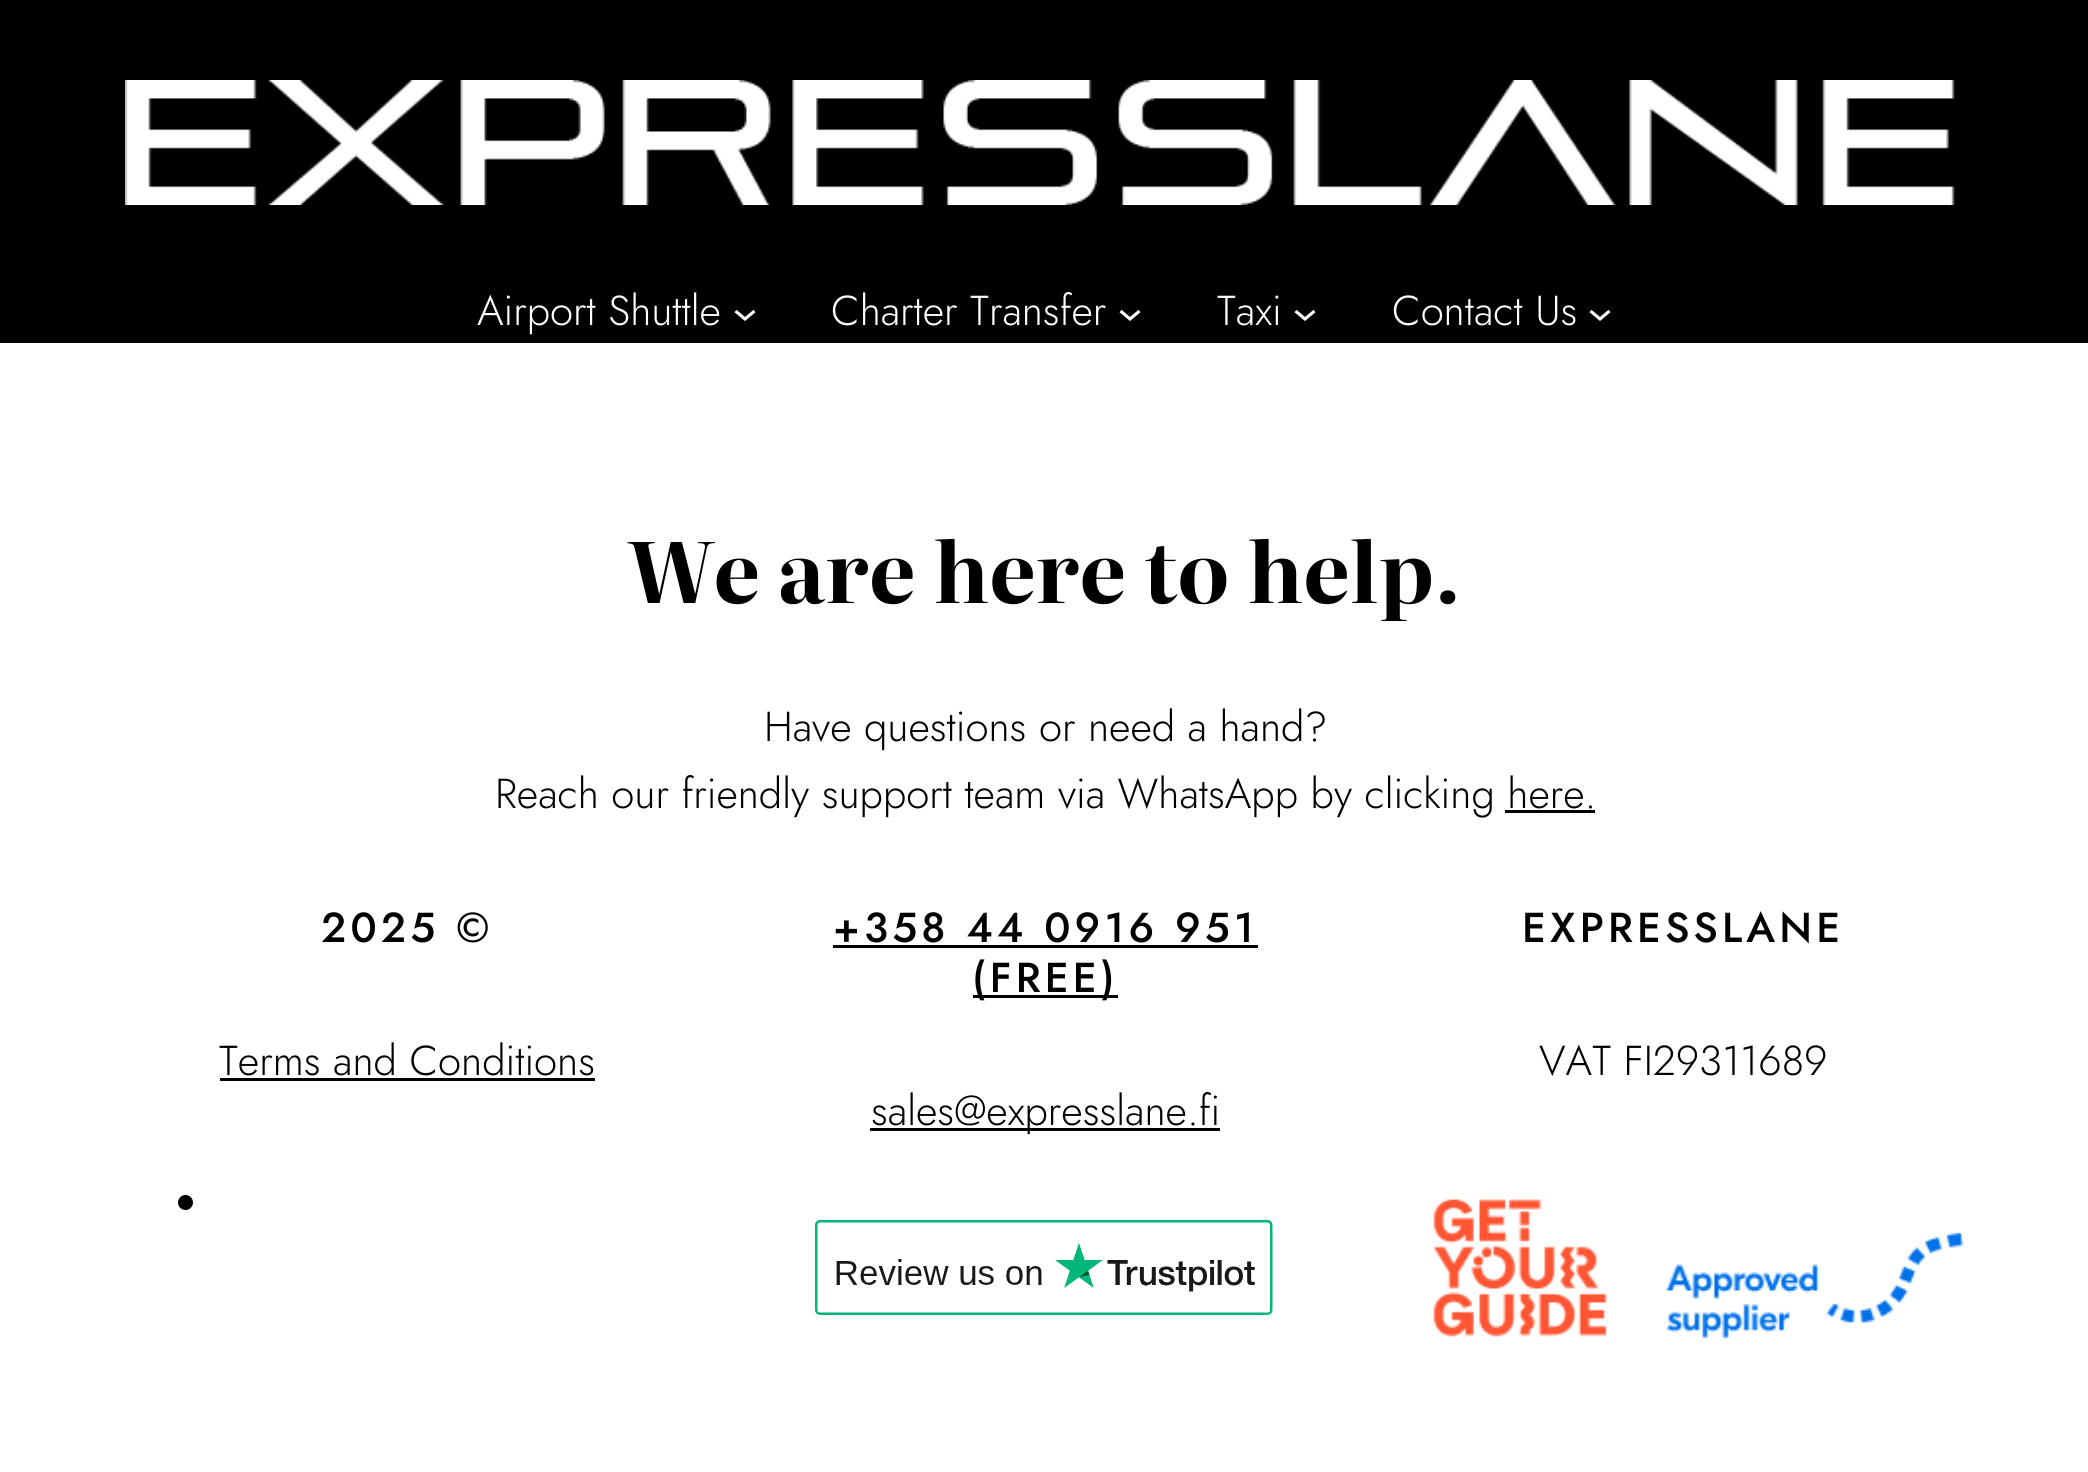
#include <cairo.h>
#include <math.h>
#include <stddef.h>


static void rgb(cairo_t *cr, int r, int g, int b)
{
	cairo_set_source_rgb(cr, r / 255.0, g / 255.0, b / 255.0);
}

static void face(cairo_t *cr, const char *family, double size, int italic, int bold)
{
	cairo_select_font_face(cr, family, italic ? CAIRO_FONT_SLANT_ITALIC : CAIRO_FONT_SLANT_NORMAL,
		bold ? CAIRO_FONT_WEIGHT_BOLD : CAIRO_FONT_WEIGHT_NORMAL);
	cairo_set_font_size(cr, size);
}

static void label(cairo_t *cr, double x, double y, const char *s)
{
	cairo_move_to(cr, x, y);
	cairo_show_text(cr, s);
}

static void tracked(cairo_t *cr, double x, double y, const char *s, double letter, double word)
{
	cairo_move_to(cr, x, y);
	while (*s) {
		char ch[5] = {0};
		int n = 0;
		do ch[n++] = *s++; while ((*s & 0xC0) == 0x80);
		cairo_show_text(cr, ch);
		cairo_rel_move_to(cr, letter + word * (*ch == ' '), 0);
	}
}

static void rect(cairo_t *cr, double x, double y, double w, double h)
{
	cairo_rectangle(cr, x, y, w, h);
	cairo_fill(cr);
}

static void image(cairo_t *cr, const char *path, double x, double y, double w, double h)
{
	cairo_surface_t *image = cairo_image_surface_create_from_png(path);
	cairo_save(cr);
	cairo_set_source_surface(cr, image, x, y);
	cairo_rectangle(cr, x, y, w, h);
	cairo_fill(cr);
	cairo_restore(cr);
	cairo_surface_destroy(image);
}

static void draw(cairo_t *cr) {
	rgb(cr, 255, 255, 255);
	cairo_paint(cr);
	rgb(cr, 0, 0, 0);
	rect(cr, 0, 0, 2088, 343);
	image(cr, "image0.png", 125, 80, 1830, 125);
	face(cr, "Jost Light", 41.8, 0, 0);
	rgb(cr, 255, 255, 255);
	label(cr, 477, 325, "Airport Shuttle");
	cairo_new_path(cr);
	cairo_move_to(cr, 735.5, 311);
	cairo_line_to(cr, 745, 319);
	cairo_line_to(cr, 754.5, 311);
	cairo_set_line_width(cr, 3.1);
	cairo_stroke(cr);
	label(cr, 831, 325, "Charter Transfer");
	cairo_new_path(cr);
	cairo_move_to(cr, 1120.5, 311);
	cairo_line_to(cr, 1130, 319);
	cairo_line_to(cr, 1139.5, 311);
	cairo_stroke(cr);
	label(cr, 1217, 325, "Taxi");
	cairo_new_path(cr);
	cairo_move_to(cr, 1295.5, 311);
	cairo_line_to(cr, 1305, 319);
	cairo_line_to(cr, 1314.5, 311);
	cairo_stroke(cr);
	label(cr, 1392, 325, "Contact Us");
	cairo_new_path(cr);
	cairo_move_to(cr, 1590.5, 311);
	cairo_line_to(cr, 1600, 319);
	cairo_line_to(cr, 1609.5, 311);
	cairo_stroke(cr);
	face(cr, "Literata", 83.5, 0, 1);
	rgb(cr, 0, 0, 0);
	label(cr, 628, 603, "We are here to help.");
	face(cr, "Jost Light", 41.8, 0, 0);
	label(cr, 764, 741, "Have questions or need a hand?");
	label(cr, 495, 808, "Reach our friendly support team via WhatsApp by clicking here.");
	rect(cr, 1505, 810, 90, 3);
	face(cr, "Jost Medium", 41.8, 0, 0);
	tracked(cr, 321, 942, "2025 ©", 4.2, 0);
	face(cr, "Jost Light", 41.8, 0, 0);
	label(cr, 219, 1075, "Terms and Conditions");
	rect(cr, 220, 1078, 375, 3);
	cairo_new_path(cr);
	cairo_arc(cr, 185.5, 1202.5, 7.5, 0, 2 * M_PI);
	cairo_fill(cr);
	face(cr, "Jost Medium", 41.8, 0, 0);
	tracked(cr, 833, 942, "+358 44 0916 951", 4.2, 0);
	rect(cr, 833, 945, 425, 3);
	rect(cr, 973, 995, 145, 3);
	tracked(cr, 972, 992, "(FREE)", 4.2, 0);
	rect(cr, 870, 1128, 350, 3);
	face(cr, "Jost Light", 41.8, 0, 0);
	label(cr, 871, 1125, "sales@expresslane.fi");
	image(cr, "image1.png", 815, 1220, 458, 95);
	face(cr, "Jost Medium", 41.8, 0, 0);
	tracked(cr, 1522, 942, "EXPRESSLANE", 4.2, 0);
	face(cr, "Jost Light", 41.8, 0, 0);
	label(cr, 1539, 1075, "VAT FI29311689");
	image(cr, "image2.png", 1433, 1199, 531, 140);
}

int main(void) {
	cairo_surface_t *surface = cairo_image_surface_create(CAIRO_FORMAT_RGB24, 2088, 1472);
	cairo_t *cr = cairo_create(surface);
	cairo_font_options_t *options = cairo_font_options_create();
	cairo_font_options_set_hint_metrics(options, CAIRO_HINT_METRICS_OFF);
	cairo_font_options_set_hint_style(options, CAIRO_HINT_STYLE_NONE);
	cairo_set_font_options(cr, options);
	cairo_set_miter_limit(cr, 4);
	draw(cr);
	cairo_surface_write_to_png(surface, "render.png");
	cairo_font_options_destroy(options);
	cairo_destroy(cr);
	cairo_surface_destroy(surface);
	return 0;
}
